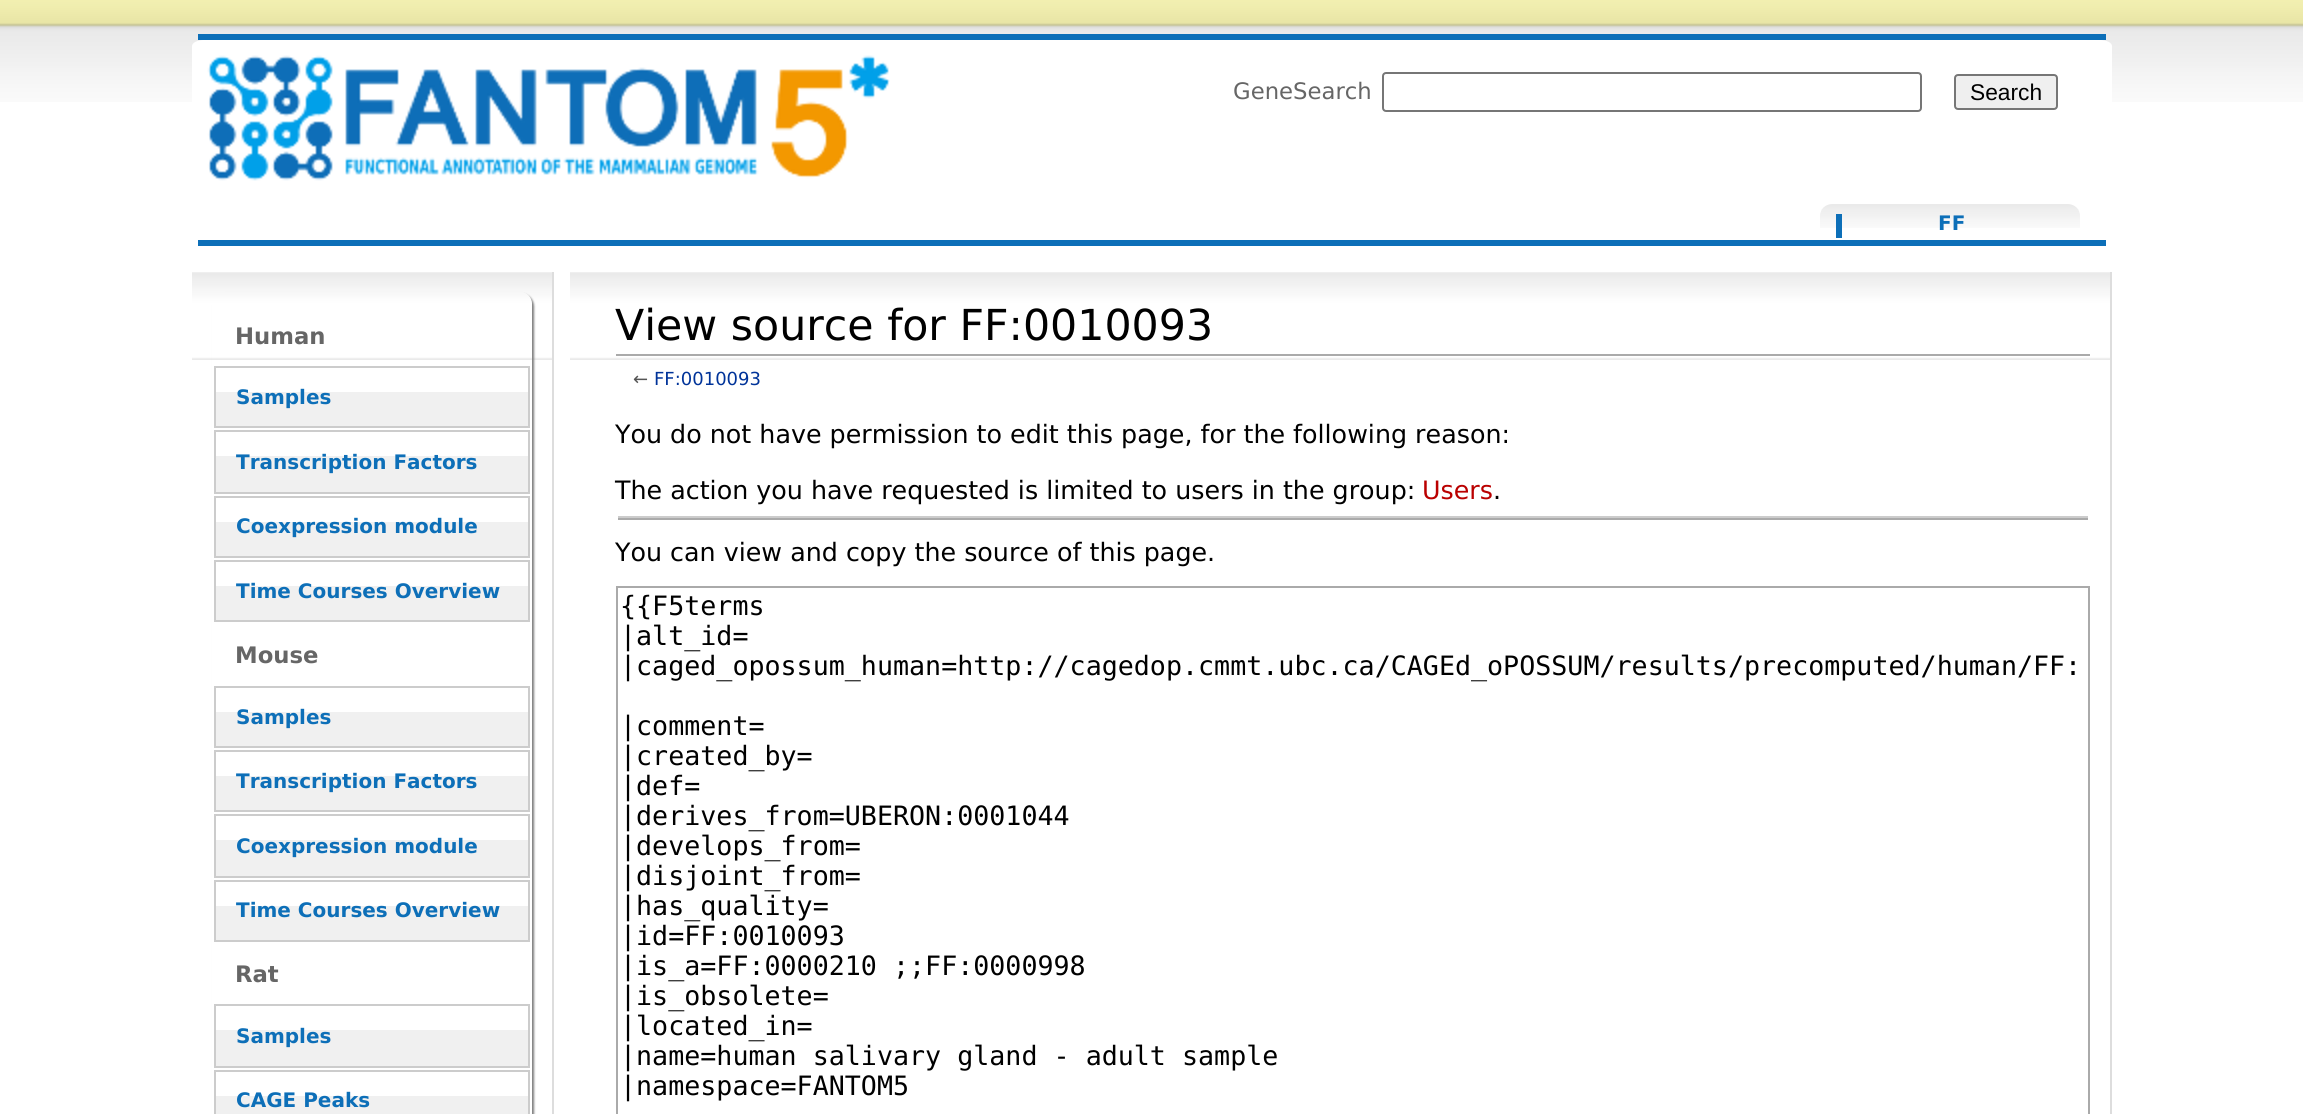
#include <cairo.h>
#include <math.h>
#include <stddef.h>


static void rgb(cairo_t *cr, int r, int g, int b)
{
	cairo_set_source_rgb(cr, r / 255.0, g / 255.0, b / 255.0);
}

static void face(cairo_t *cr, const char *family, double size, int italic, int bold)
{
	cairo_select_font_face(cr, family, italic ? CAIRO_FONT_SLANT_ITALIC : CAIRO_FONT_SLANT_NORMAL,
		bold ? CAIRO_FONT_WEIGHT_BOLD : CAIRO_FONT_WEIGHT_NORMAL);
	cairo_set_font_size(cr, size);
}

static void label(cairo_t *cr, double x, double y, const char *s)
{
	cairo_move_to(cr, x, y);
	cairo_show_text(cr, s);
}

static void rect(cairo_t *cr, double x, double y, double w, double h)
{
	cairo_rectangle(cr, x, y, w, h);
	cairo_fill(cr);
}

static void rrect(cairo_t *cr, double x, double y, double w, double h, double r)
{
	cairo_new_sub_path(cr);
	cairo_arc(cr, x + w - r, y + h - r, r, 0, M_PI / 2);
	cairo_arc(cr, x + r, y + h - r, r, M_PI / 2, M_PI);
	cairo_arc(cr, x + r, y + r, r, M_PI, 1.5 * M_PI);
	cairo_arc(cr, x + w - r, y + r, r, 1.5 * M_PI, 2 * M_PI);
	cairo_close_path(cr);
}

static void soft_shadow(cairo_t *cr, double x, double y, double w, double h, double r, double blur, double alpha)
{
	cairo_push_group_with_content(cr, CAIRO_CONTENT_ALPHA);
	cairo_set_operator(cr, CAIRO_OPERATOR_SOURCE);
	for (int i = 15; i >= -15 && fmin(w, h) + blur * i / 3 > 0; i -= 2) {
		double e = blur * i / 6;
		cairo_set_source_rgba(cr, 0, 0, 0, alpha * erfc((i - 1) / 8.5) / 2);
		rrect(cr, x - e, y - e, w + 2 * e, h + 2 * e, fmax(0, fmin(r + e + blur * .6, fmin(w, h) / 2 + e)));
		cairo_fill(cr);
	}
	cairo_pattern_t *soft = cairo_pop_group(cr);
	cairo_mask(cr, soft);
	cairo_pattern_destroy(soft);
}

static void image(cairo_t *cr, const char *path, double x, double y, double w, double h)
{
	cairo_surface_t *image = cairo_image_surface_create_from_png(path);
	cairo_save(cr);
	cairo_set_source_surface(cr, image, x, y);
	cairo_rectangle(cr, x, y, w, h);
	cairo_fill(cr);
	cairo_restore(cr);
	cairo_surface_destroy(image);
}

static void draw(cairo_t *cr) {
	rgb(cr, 255, 255, 255);
	cairo_paint(cr);
	image(cr, "image0.png", 0, 0, 2303, 102);
	rgb(cr, 255, 255, 255);
	cairo_new_path(cr);
	cairo_move_to(cr, 204, 40);
	cairo_line_to(cr, 2100, 40);
	cairo_curve_to(cr, 2107, 40, 2112, 43, 2112, 46);
	cairo_line_to(cr, 2112, 234);
	cairo_curve_to(cr, 2112, 237, 2107, 240, 2100, 240);
	cairo_line_to(cr, 204, 240);
	cairo_curve_to(cr, 197, 240, 192, 237, 192, 234);
	cairo_line_to(cr, 192, 46);
	cairo_curve_to(cr, 192, 43, 197, 40, 204, 40);
	cairo_close_path(cr);
	cairo_fill(cr);
	image(cr, "image1.png", 207, 55, 683, 126);
	rgb(cr, 13, 111, 184);
	rect(cr, 198, 34, 1908, 6);
	rect(cr, 198, 240, 1908, 6);
	face(cr, "DejaVu Sans", 22.75, 0, 0);
	rgb(cr, 102, 102, 102);
	label(cr, 1233, 99, "GeneSearch");
	rrect(cr, 1383, 73, 538, 38, 3);
	rgb(cr, 118, 118, 118);
	cairo_stroke(cr);
	rgb(cr, 239, 239, 239);
	rrect(cr, 1955, 75, 102, 34, 3);
	cairo_fill_preserve(cr);
	rgb(cr, 118, 118, 118);
	cairo_stroke(cr);
	face(cr, "Liberation Sans", 22.75, 0, 0);
	rgb(cr, 0, 0, 0);
	label(cr, 1970, 100, "Search");
	image(cr, "image2.png", 1820, 204, 260, 24);
	rgb(cr, 13, 111, 184);
	rect(cr, 1836, 214, 6, 24);
	face(cr, "DejaVu Sans", 20, 0, 1);
	label(cr, 1938, 230, "FF");
	image(cr, "image3.png", 192, 272, 360, 88);
	rgb(cr, 221, 221, 221);
	rect(cr, 552, 272, 2, 842);
	cairo_save(cr);
	cairo_set_fill_rule(cr, CAIRO_FILL_RULE_EVEN_ODD);
	cairo_new_path(cr);
	cairo_move_to(cr, 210, 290);
	cairo_line_to(cr, 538, 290);
	cairo_line_to(cr, 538, 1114);
	cairo_line_to(cr, 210, 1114);
	cairo_close_path(cr);
	cairo_move_to(cr, 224, 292);
	cairo_line_to(cr, 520, 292);
	cairo_curve_to(cr, 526.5, 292, 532, 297.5, 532, 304);
	cairo_line_to(cr, 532, 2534);
	cairo_curve_to(cr, 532, 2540.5, 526.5, 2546, 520, 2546);
	cairo_line_to(cr, 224, 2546);
	cairo_curve_to(cr, 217.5, 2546, 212, 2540.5, 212, 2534);
	cairo_line_to(cr, 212, 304);
	cairo_curve_to(cr, 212, 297.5, 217.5, 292, 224, 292);
	cairo_close_path(cr);
	cairo_clip(cr);
	rgb(cr, 128, 128, 128);
	soft_shadow(cr, 214, 294, 320, 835, 12, 1, 1);
	cairo_restore(cr);
	face(cr, "DejaVu Sans", 22.75, 0, 1);
	rgb(cr, 102, 102, 102);
	label(cr, 235, 344, "Human");
	rgb(cr, 240, 240, 240);
	rect(cr, 216, 392, 312, 34);
	cairo_rectangle(cr, 215, 367, 314, 60);
	rgb(cr, 204, 204, 204);
	cairo_stroke(cr);
	face(cr, "DejaVu Sans", 20, 0, 1);
	rgb(cr, 13, 111, 184);
	label(cr, 236, 404, "Samples");
	rgb(cr, 240, 240, 240);
	rect(cr, 216, 456, 312, 36);
	cairo_rectangle(cr, 215, 431, 314, 62);
	rgb(cr, 204, 204, 204);
	cairo_stroke(cr);
	rgb(cr, 13, 111, 184);
	label(cr, 236, 469, "Transcription Factors");
	rgb(cr, 240, 240, 240);
	rect(cr, 216, 522, 312, 34);
	cairo_rectangle(cr, 215, 497, 314, 60);
	rgb(cr, 204, 204, 204);
	cairo_stroke(cr);
	rgb(cr, 13, 111, 184);
	label(cr, 236, 533, "Coexpression module");
	rgb(cr, 240, 240, 240);
	rect(cr, 216, 586, 312, 34);
	cairo_rectangle(cr, 215, 561, 314, 60);
	rgb(cr, 204, 204, 204);
	cairo_stroke(cr);
	rgb(cr, 13, 111, 184);
	label(cr, 236, 598, "Time Courses Overview");
	face(cr, "DejaVu Sans", 22.75, 0, 1);
	rgb(cr, 102, 102, 102);
	label(cr, 235, 663, "Mouse");
	rgb(cr, 240, 240, 240);
	rect(cr, 216, 712, 312, 34);
	cairo_rectangle(cr, 215, 687, 314, 60);
	rgb(cr, 204, 204, 204);
	cairo_stroke(cr);
	face(cr, "DejaVu Sans", 20, 0, 1);
	rgb(cr, 13, 111, 184);
	label(cr, 236, 724, "Samples");
	rgb(cr, 240, 240, 240);
	rect(cr, 216, 776, 312, 34);
	cairo_rectangle(cr, 215, 751, 314, 60);
	rgb(cr, 204, 204, 204);
	cairo_stroke(cr);
	rgb(cr, 13, 111, 184);
	label(cr, 236, 788, "Transcription Factors");
	rgb(cr, 240, 240, 240);
	rect(cr, 216, 840, 312, 36);
	cairo_rectangle(cr, 215, 815, 314, 62);
	rgb(cr, 204, 204, 204);
	cairo_stroke(cr);
	rgb(cr, 13, 111, 184);
	label(cr, 236, 853, "Coexpression module");
	rgb(cr, 240, 240, 240);
	rect(cr, 216, 906, 312, 34);
	cairo_rectangle(cr, 215, 881, 314, 60);
	rgb(cr, 204, 204, 204);
	cairo_stroke(cr);
	rgb(cr, 13, 111, 184);
	label(cr, 236, 917, "Time Courses Overview");
	face(cr, "DejaVu Sans", 22.75, 0, 1);
	rgb(cr, 102, 102, 102);
	label(cr, 235, 982, "Rat");
	rgb(cr, 240, 240, 240);
	rect(cr, 216, 1030, 312, 36);
	cairo_rectangle(cr, 215, 1005, 314, 62);
	rgb(cr, 204, 204, 204);
	cairo_stroke(cr);
	face(cr, "DejaVu Sans", 20, 0, 1);
	rgb(cr, 13, 111, 184);
	label(cr, 236, 1043, "Samples");
	rgb(cr, 240, 240, 240);
	rect(cr, 216, 1096, 312, 18);
	cairo_rectangle(cr, 215, 1071, 314, 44);
	rgb(cr, 204, 204, 204);
	cairo_stroke(cr);
	rgb(cr, 13, 111, 184);
	label(cr, 236, 1107, "CAGE Peaks");
	image(cr, "image4.png", 570, 272, 1540, 88);
	rgb(cr, 221, 221, 221);
	rect(cr, 2110, 272, 2, 842);
	rgb(cr, 170, 170, 170);
	rect(cr, 616, 354, 1474, 2);
	face(cr, "DejaVu Sans", 42.7, 0, 0);
	rgb(cr, 0, 0, 0);
	label(cr, 615, 340, "View source for FF:0010093");
	face(cr, "DejaVu Sans", 18, 0, 0);
	rgb(cr, 85, 85, 85);
	label(cr, 633, 385, "←");
	rgb(cr, 0, 51, 153);
	label(cr, 654, 385, "FF:0010093");
	face(cr, "DejaVu Sans", 25.35, 0, 0);
	rgb(cr, 0, 0, 0);
	label(cr, 615, 443, "You do not have permission to edit this page, for the following reason:");
	label(cr, 615, 499, "The action you have requested is limited to users in the group:");
	rgb(cr, 186, 0, 0);
	label(cr, 1422, 499, "Users");
	rgb(cr, 0, 0, 0);
	label(cr, 1493, 499, ".");
	rgb(cr, 170, 170, 170);
	rect(cr, 616, 518, 1474, 2);
	rgb(cr, 204, 204, 204);
	rect(cr, 616, 516, 1474, 2);
	rgb(cr, 255, 255, 255);
	rect(cr, 2088, 516, 2, 6);
	rect(cr, 616, 516, 2, 6);
	rgb(cr, 0, 0, 0);
	label(cr, 615, 561, "You can view and copy the source of this page.");
	cairo_rectangle(cr, 617, 587, 1472, 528);
	rgb(cr, 170, 170, 170);
	cairo_stroke(cr);
	face(cr, "DejaVu Sans Mono", 26.67, 0, 0);
	rgb(cr, 0, 0, 0);
	label(cr, 620, 615, "{{F5terms");
	label(cr, 620, 645, "|alt_id=");
	label(cr, 620, 675, "|caged_opossum_human=http://cagedop.cmmt.ubc.ca/CAGEd_oPOSSUM/results/precomputed/human/FF:");
	label(cr, 620, 735, "|comment=");
	label(cr, 620, 765, "|created_by=");
	label(cr, 620, 795, "|def=");
	label(cr, 620, 825, "|derives_from=UBERON:0001044");
	label(cr, 620, 855, "|develops_from=");
	label(cr, 620, 885, "|disjoint_from=");
	label(cr, 620, 915, "|has_quality=");
	label(cr, 620, 945, "|id=FF:0010093");
	label(cr, 620, 975, "|is_a=FF:0000210 ;;FF:0000998");
	label(cr, 620, 1005, "|is_obsolete=");
	label(cr, 620, 1035, "|located_in=");
	label(cr, 620, 1065, "|name=human salivary gland - adult sample");
	label(cr, 620, 1095, "|namespace=FANTOM5");
}

int main(void) {
	cairo_surface_t *surface = cairo_image_surface_create(CAIRO_FORMAT_RGB24, 2303, 1114);
	cairo_t *cr = cairo_create(surface);
	cairo_font_options_t *options = cairo_font_options_create();
	cairo_font_options_set_hint_metrics(options, CAIRO_HINT_METRICS_OFF);
	cairo_font_options_set_hint_style(options, CAIRO_HINT_STYLE_NONE);
	cairo_set_font_options(cr, options);
	cairo_set_miter_limit(cr, 4);
	draw(cr);
	cairo_surface_write_to_png(surface, "render.png");
	cairo_font_options_destroy(options);
	cairo_destroy(cr);
	cairo_surface_destroy(surface);
	return 0;
}
